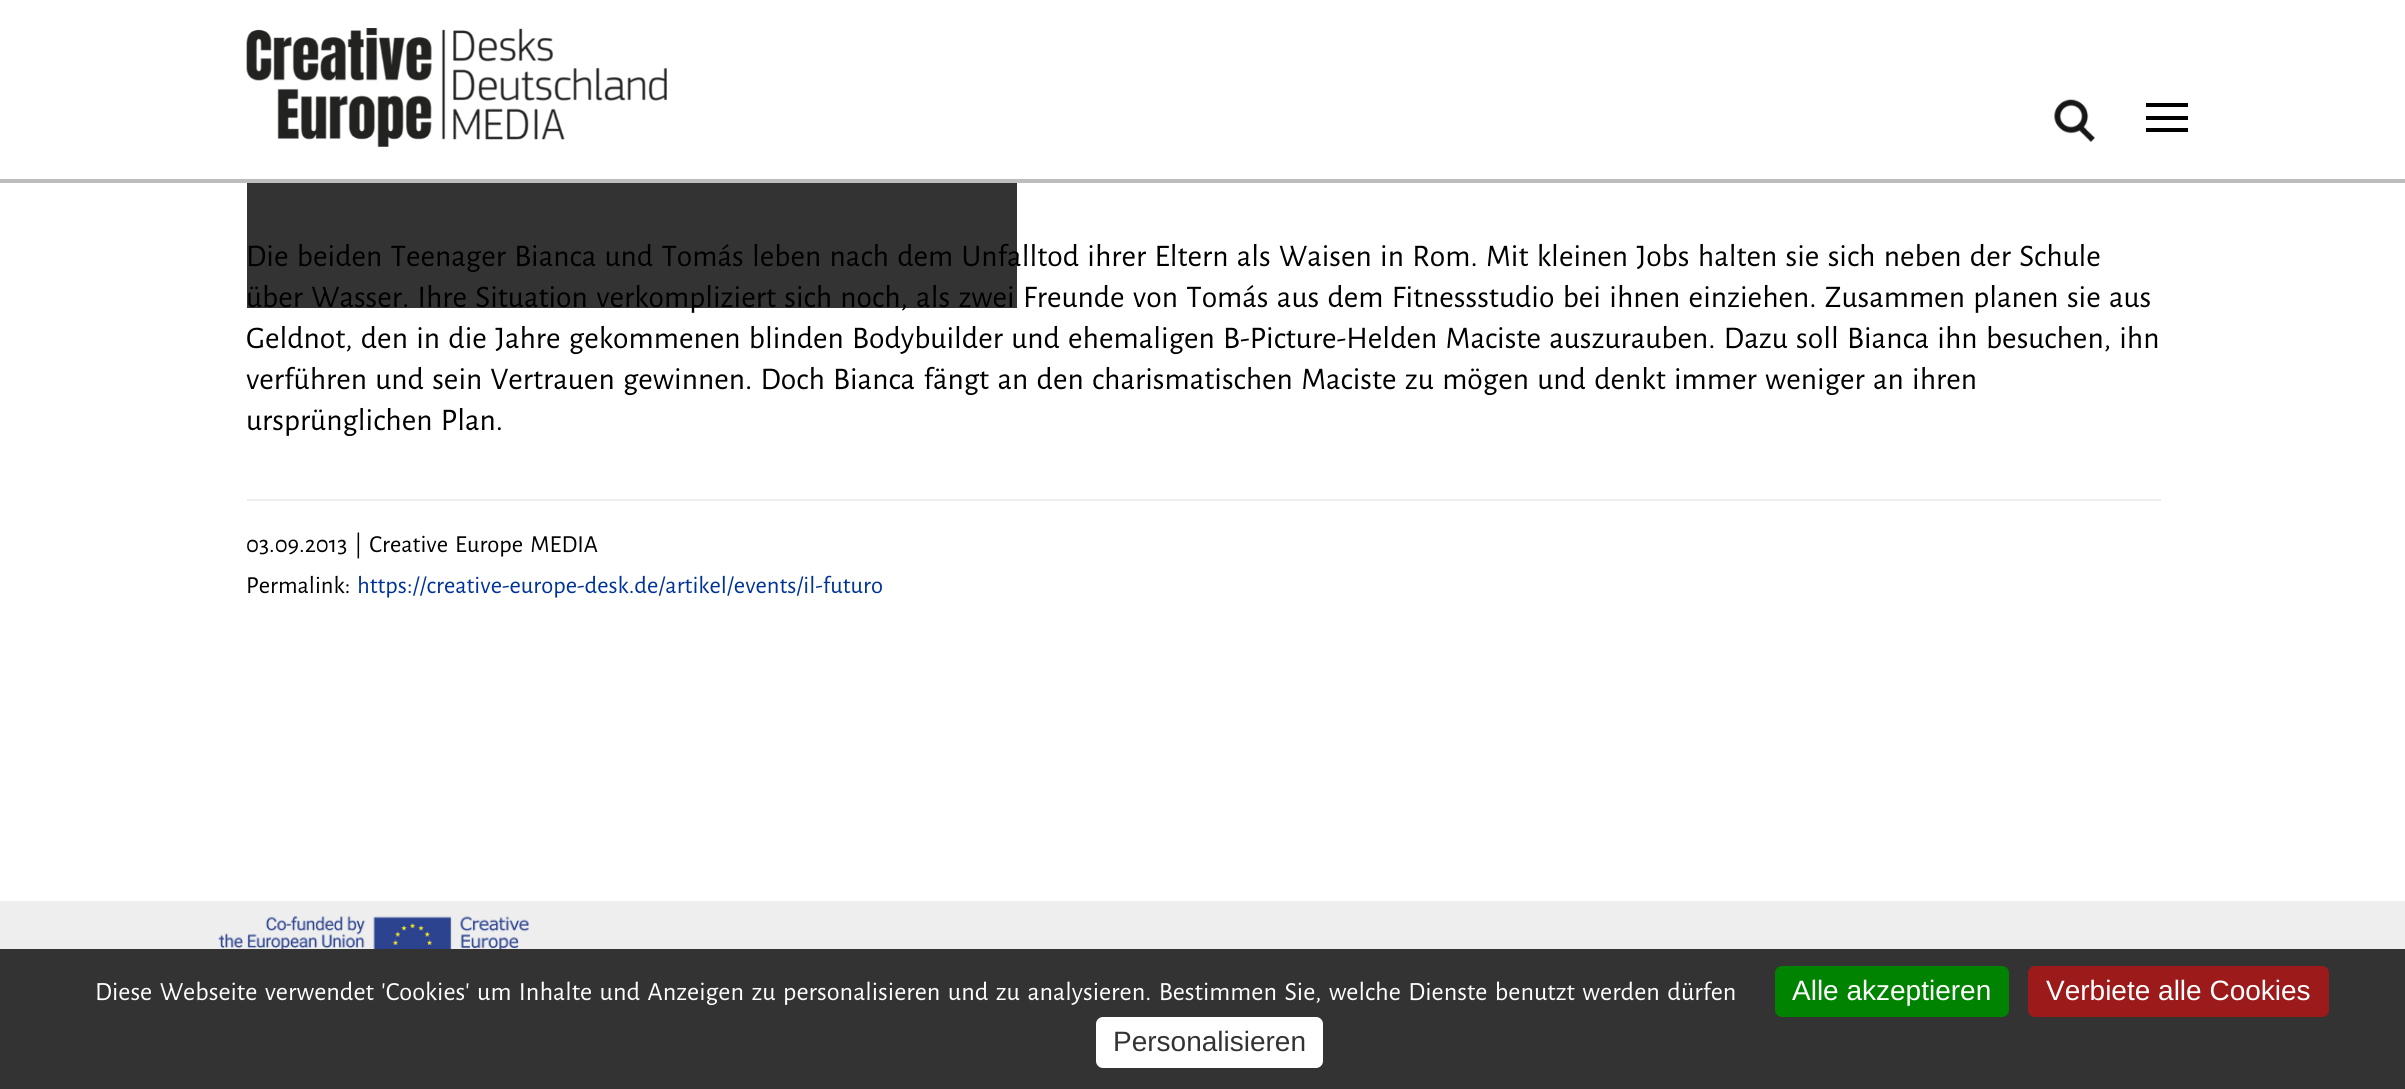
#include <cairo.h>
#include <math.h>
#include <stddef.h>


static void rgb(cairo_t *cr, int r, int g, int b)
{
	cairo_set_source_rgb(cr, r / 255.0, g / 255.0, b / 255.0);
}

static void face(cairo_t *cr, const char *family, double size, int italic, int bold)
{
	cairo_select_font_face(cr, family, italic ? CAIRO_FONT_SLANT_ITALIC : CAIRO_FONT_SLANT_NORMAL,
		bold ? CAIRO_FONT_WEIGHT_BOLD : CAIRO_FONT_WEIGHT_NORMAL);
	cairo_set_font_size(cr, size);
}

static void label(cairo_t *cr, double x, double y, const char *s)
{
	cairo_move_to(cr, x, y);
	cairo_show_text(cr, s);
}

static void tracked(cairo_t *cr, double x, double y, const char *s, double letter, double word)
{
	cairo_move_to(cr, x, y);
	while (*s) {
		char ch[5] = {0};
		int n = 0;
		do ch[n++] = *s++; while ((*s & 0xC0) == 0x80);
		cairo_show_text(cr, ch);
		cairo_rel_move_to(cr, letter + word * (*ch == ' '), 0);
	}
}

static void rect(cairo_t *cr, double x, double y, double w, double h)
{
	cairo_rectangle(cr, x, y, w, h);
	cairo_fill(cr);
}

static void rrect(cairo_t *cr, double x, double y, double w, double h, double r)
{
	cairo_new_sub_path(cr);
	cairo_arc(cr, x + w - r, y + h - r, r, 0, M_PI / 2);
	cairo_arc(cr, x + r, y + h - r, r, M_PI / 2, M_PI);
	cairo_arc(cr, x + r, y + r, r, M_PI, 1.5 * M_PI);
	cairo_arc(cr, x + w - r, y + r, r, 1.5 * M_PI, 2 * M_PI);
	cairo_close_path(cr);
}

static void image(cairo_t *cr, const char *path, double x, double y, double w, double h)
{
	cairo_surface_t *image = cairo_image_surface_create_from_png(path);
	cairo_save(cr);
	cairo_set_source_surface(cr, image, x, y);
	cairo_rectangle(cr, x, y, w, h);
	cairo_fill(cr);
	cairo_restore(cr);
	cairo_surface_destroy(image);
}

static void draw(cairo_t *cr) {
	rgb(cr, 255, 255, 255);
	cairo_paint(cr);
	rgb(cr, 189, 189, 189);
	rect(cr, 0, 179, 2405, 4);
	image(cr, "image0.png", 246, 28, 421, 119);
	image(cr, "image1.png", 2054, 99, 41, 43);
	rgb(cr, 0, 0, 0);
	rect(cr, 2146, 116, 42, 4);
	rect(cr, 2146, 103, 42, 4);
	rect(cr, 2146, 128, 42, 4);
	rgb(cr, 51, 51, 51);
	rect(cr, 247, 183, 770, 125);
	face(cr, "Alegreya Sans", 31.5, 0, 0);
	rgb(cr, 0, 0, 0);
	tracked(cr, 246, 266, "Die beiden Teenager Bianca und Tomás leben nach dem Unfalltod ihrer Eltern als Waisen in Rom. Mit kleinen Jobs halten sie sich neben der Schule", 0, 3.1);
	tracked(cr, 246, 307, "über Wasser. Ihre Situation verkompliziert sich noch, als zwei Freunde von Tomás aus dem Fitnessstudio bei ihnen einziehen. Zusammen planen sie aus", 0, 3.1);
	tracked(cr, 246, 348, "Geldnot, den in die Jahre gekommenen blinden Bodybuilder und ehemaligen B-Picture-Helden Maciste auszurauben. Dazu soll Bianca ihn besuchen, ihn", 0, 3.1);
	tracked(cr, 246, 389, "verführen und sein Vertrauen gewinnen. Doch Bianca fängt an den charismatischen Maciste zu mögen und denkt immer weniger an ihren", 0, 3.1);
	tracked(cr, 246, 430, "ursprünglichen Plan.", 0, 3.1);
	rgb(cr, 238, 238, 238);
	rect(cr, 247, 499, 1914, 2);
	face(cr, "Alegreya Sans", 24.5, 0, 0);
	rgb(cr, 0, 0, 0);
	tracked(cr, 246, 552, "03.09.2013 | Creative Europe MEDIA", 0, 3.1);
	label(cr, 246, 593, "Permalink:");
	rgb(cr, 0, 51, 153);
	label(cr, 357, 593, "https://creative-europe-desk.de/artikel/events/il-futuro");
	rgb(cr, 238, 238, 238);
	rect(cr, 0, 901, 2405, 48);
	image(cr, "image2.png", 218, 916, 311, 33);
	rgb(cr, 51, 51, 51);
	rect(cr, 0, 949, 2405, 140);
	face(cr, "Alegreya Sans", 26.25, 0, 0);
	rgb(cr, 255, 255, 255);
	tracked(cr, 95, 1000, "Diese Webseite verwendet 'Cookies' um Inhalte und Anzeigen zu personalisieren und zu analysieren. Bestimmen Sie, welche Dienste benutzt werden dürfen", 0, 3.1);
	rgb(cr, 0, 131, 0);
	rrect(cr, 1775, 966, 234, 51, 7);
	cairo_fill(cr);
	face(cr, "Liberation Sans", 28, 0, 0);
	rgb(cr, 255, 255, 255);
	label(cr, 1792, 1000, "Alle akzeptieren");
	rgb(cr, 156, 26, 26);
	rrect(cr, 2028, 966, 301, 51, 7);
	cairo_fill(cr);
	rgb(cr, 255, 255, 255);
	label(cr, 2046, 1000, "Verbiete alle Cookies");
	rrect(cr, 1096, 1017, 227, 51, 7);
	cairo_fill(cr);
	rgb(cr, 51, 51, 51);
	label(cr, 1113, 1051, "Personalisieren");
}

int main(void) {
	cairo_surface_t *surface = cairo_image_surface_create(CAIRO_FORMAT_RGB24, 2405, 1089);
	cairo_t *cr = cairo_create(surface);
	cairo_font_options_t *options = cairo_font_options_create();
	cairo_font_options_set_hint_metrics(options, CAIRO_HINT_METRICS_OFF);
	cairo_font_options_set_hint_style(options, CAIRO_HINT_STYLE_NONE);
	cairo_set_font_options(cr, options);
	cairo_set_miter_limit(cr, 4);
	draw(cr);
	cairo_surface_write_to_png(surface, "render.png");
	cairo_font_options_destroy(options);
	cairo_destroy(cr);
	cairo_surface_destroy(surface);
	return 0;
}
